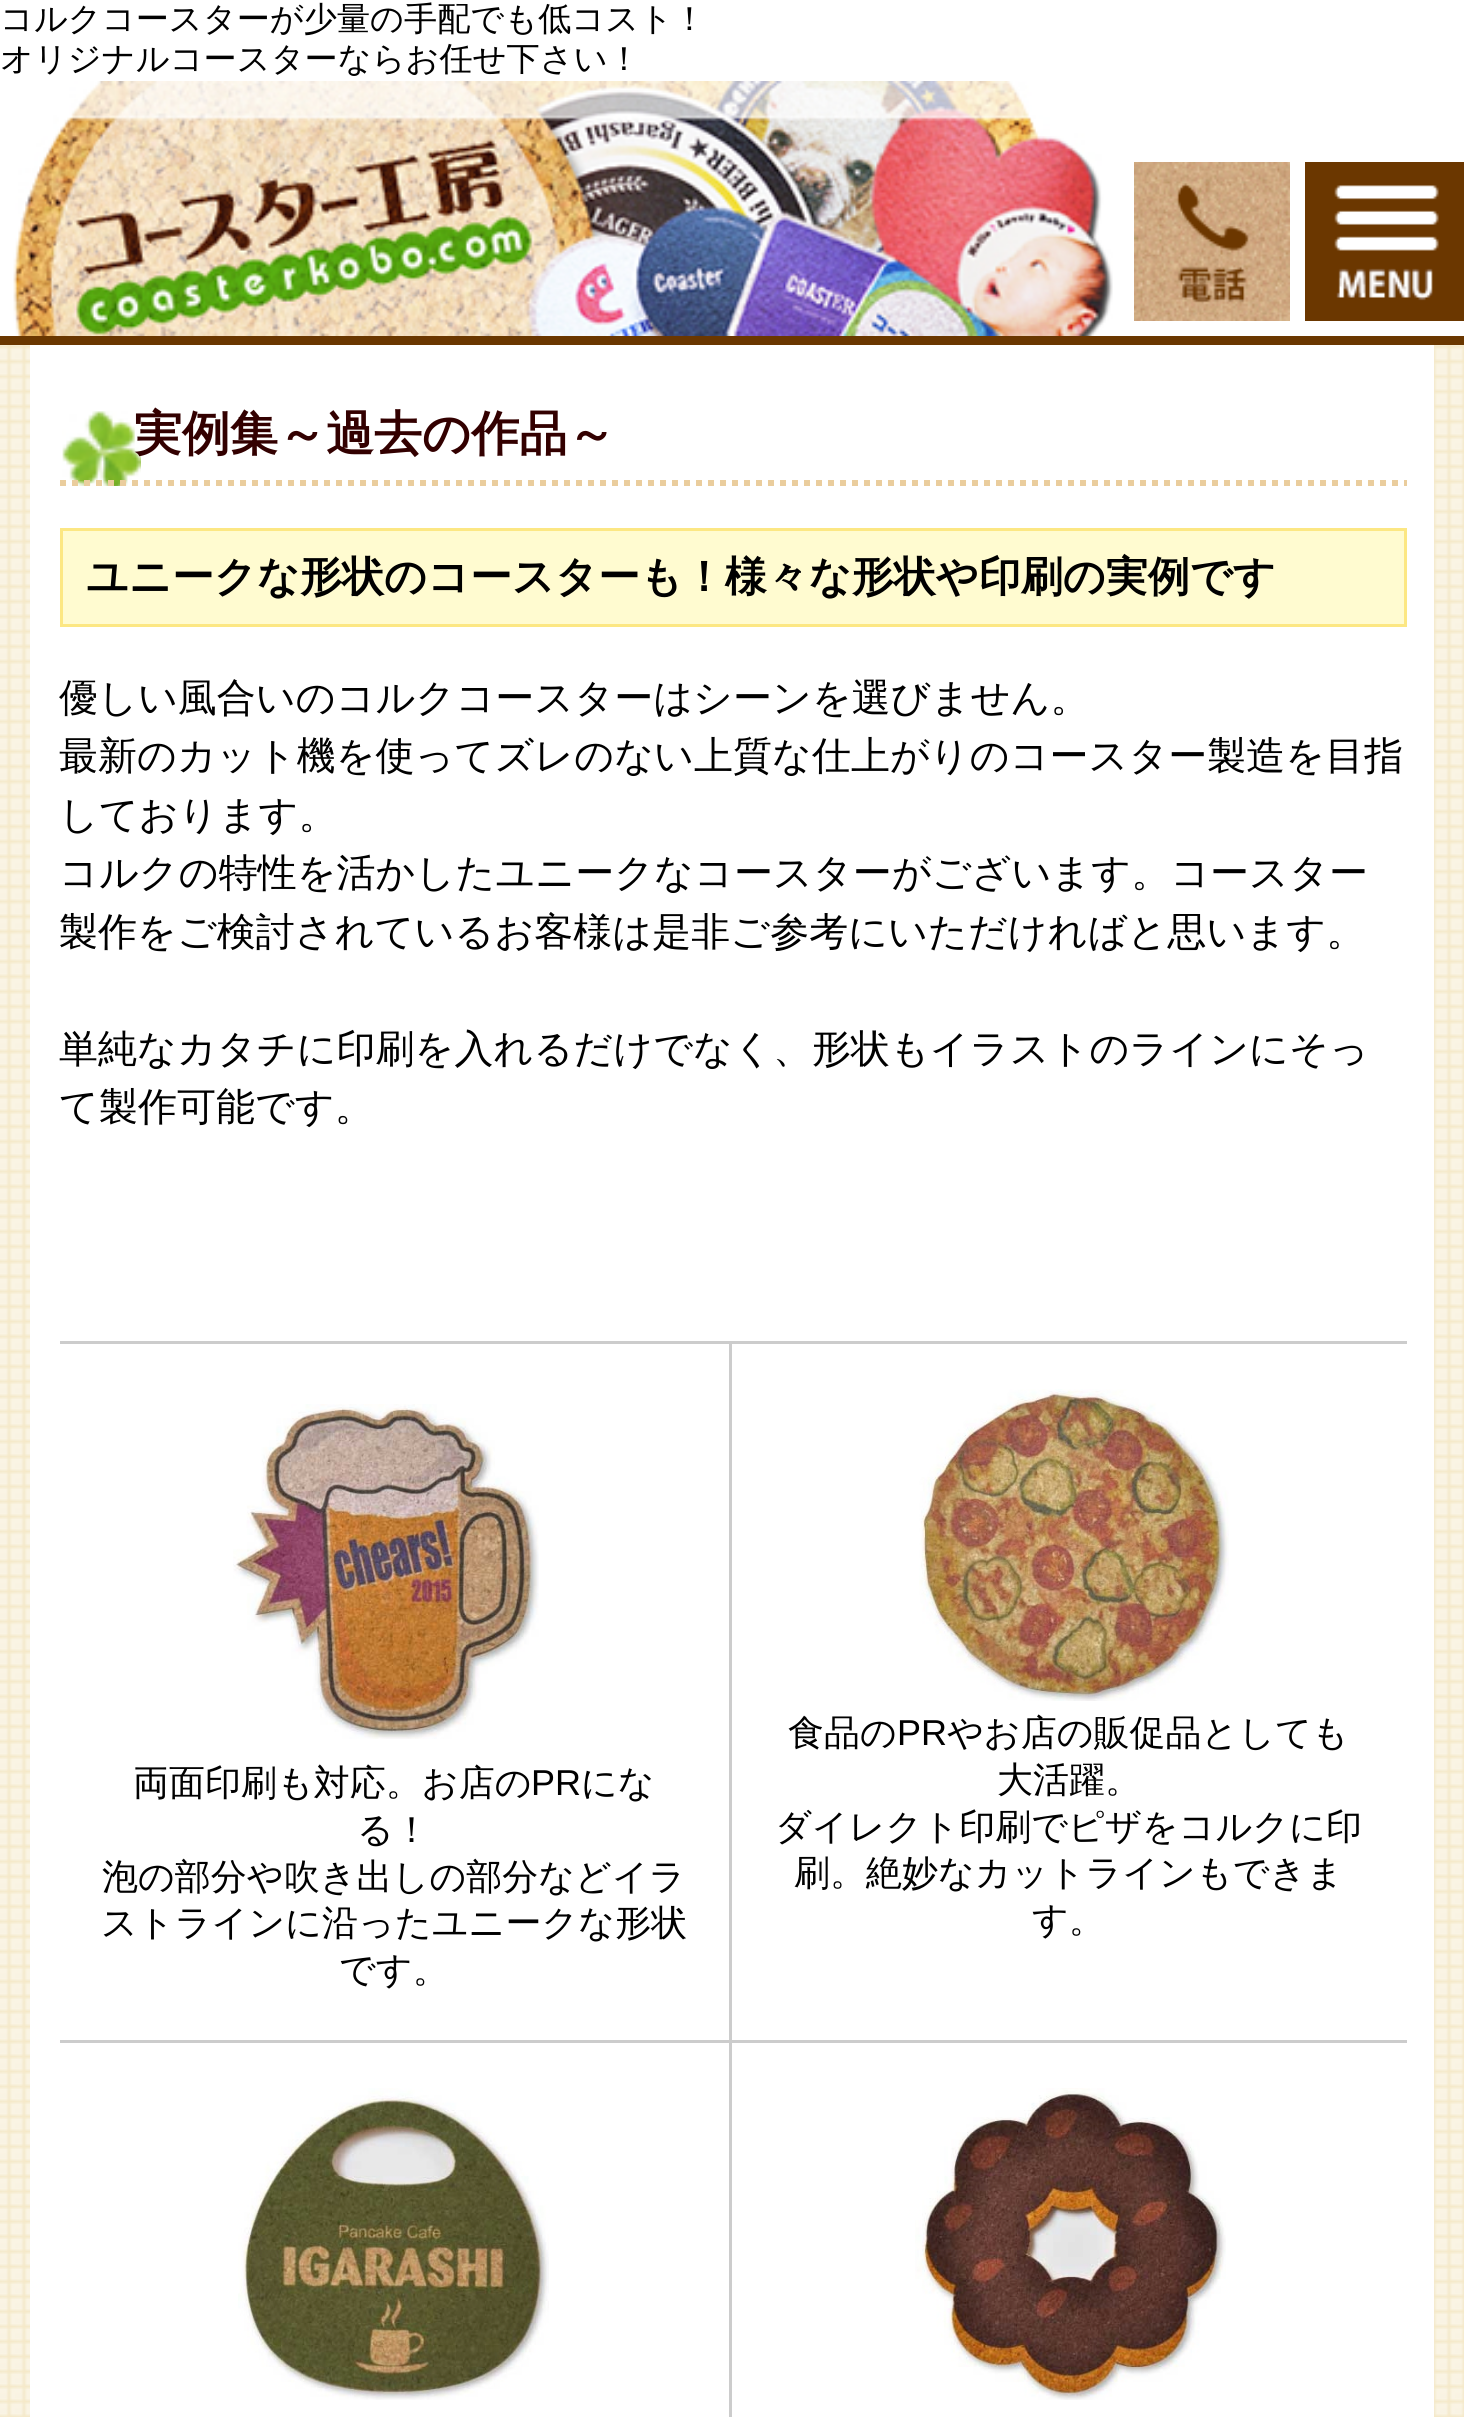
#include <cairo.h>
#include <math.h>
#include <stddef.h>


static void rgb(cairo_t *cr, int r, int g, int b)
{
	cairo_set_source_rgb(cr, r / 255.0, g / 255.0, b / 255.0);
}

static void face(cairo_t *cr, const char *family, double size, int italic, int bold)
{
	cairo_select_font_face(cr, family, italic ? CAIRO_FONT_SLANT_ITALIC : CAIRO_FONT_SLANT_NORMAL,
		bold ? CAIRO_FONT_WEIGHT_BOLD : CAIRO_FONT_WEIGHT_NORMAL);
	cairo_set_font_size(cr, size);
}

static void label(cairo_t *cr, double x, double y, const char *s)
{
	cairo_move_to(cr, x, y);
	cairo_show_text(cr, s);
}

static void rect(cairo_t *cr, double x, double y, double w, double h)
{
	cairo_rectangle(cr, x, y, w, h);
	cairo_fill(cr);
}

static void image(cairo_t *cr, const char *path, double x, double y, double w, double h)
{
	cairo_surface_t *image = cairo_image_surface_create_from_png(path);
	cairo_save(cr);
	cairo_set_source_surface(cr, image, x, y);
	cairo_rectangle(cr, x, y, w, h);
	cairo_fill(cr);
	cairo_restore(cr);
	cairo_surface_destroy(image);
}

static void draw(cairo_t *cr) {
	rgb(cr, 255, 255, 255);
	cairo_paint(cr);
	image(cr, "image0.png", 0, 345, 1464, 2072);
	face(cr, "WenQuanYi Zen Hei Medium", 33.15, 0, 0);
	rgb(cr, 0, 0, 0);
	label(cr, 0, 30, "コルクコースターが少量の手配でも低コスト！");
	label(cr, 0, 70, "オリジナルコースターならお任せ下さい！");
	rgb(cr, 106, 55, 0);
	rect(cr, 0, 336, 1464, 9);
	image(cr, "image1.png", 13, 81, 1100, 255);
	image(cr, "image2.png", 1134, 162, 156, 159);
	image(cr, "image3.png", 1305, 162, 159, 159);
	rgb(cr, 255, 255, 255);
	rect(cr, 30, 345, 1404, 2072);
	image(cr, "image4.png", 62, 411, 79, 75);
	cairo_new_path(cr);
	cairo_move_to(cr, 60, 483);
	cairo_line_to(cr, 1407, 483);
	rgb(cr, 234, 205, 157);
	cairo_set_line_width(cr, 6);
	cairo_set_dash(cr, (double[]){6, 6}, 2, 0);
	cairo_stroke(cr);
	face(cr, "WenQuanYi Zen Hei", 48, 0, 1);
	rgb(cr, 51, 0, 0);
	label(cr, 134, 450, "実例集～過去の作品～");
	rgb(cr, 255, 251, 208);
	cairo_rectangle(cr, 61.5, 529.5, 1344, 96);
	cairo_fill_preserve(cr);
	rgb(cr, 252, 231, 131);
	cairo_set_line_width(cr, 3);
	cairo_set_dash(cr, NULL, 0, 0);
	cairo_stroke(cr);
	face(cr, "WenQuanYi Zen Hei", 42, 0, 1);
	rgb(cr, 0, 0, 0);
	label(cr, 86, 591, "ユニークな形状のコースターも！様々な形状や印刷の実例です");
	face(cr, "WenQuanYi Zen Hei Medium", 39, 0, 0);
	label(cr, 59, 711, "優しい風合いのコルクコースターはシーンを選びません。");
	label(cr, 59, 769, "最新のカット機を使ってズレのない上質な仕上がりのコースター製造を目指");
	label(cr, 59, 828, "しております。");
	label(cr, 59, 886, "コルクの特性を活かしたユニークなコースターがございます。コースター");
	label(cr, 59, 945, "製作をご検討されているお客様は是非ご参考にいただければと思います。");
	label(cr, 59, 1062, "単純なカタチに印刷を入れるだけでなく、形状もイラストのラインにそっ");
	label(cr, 59, 1120, "て製作可能です。");
	rgb(cr, 204, 204, 204);
	rect(cr, 60, 1341, 1347, 3);
	rect(cr, 729, 1344, 3, 1073);
	rect(cr, 60, 2040, 1347, 3);
	image(cr, "image5.png", 233, 1404, 306, 335);
	face(cr, "WenQuanYi Zen Hei Medium", 36, 0, 0);
	rgb(cr, 0, 0, 0);
	label(cr, 133, 1795, "両面印刷も対応。お店の");
	face(cr, "Liberation Sans", 36, 0, 0);
	label(cr, 531, 1795, "PR");
	face(cr, "WenQuanYi Zen Hei Medium", 36, 0, 0);
	label(cr, 581, 1795, "にな");
	label(cr, 357, 1842, "る！");
	label(cr, 102, 1889, "泡の部分や吹き出しの部分などイラ");
	label(cr, 101, 1935, "ストラインに沿ったユニークな形状");
	label(cr, 339, 1982, "です。");
	image(cr, "image6.png", 919, 1389, 310, 312);
	label(cr, 788, 1745, "食品の");
	face(cr, "Liberation Sans", 36, 0, 0);
	label(cr, 897, 1745, "PR");
	face(cr, "WenQuanYi Zen Hei Medium", 36, 0, 0);
	label(cr, 947, 1745, "やお店の販促品としても");
	label(cr, 997, 1792, "大活躍。");
	label(cr, 775, 1839, "ダイレクト印刷でピザをコルクに印");
	label(cr, 794, 1885, "刷。絶妙なカットラインもできま");
	label(cr, 1032, 1932, "す。");
	image(cr, "image7.png", 238, 2088, 311, 312);
	image(cr, "image8.png", 915, 2088, 311, 312);
}

int main(void) {
	cairo_surface_t *surface = cairo_image_surface_create(CAIRO_FORMAT_RGB24, 1464, 2417);
	cairo_t *cr = cairo_create(surface);
	cairo_font_options_t *options = cairo_font_options_create();
	cairo_font_options_set_hint_metrics(options, CAIRO_HINT_METRICS_OFF);
	cairo_font_options_set_hint_style(options, CAIRO_HINT_STYLE_NONE);
	cairo_set_font_options(cr, options);
	cairo_set_miter_limit(cr, 4);
	draw(cr);
	cairo_surface_write_to_png(surface, "render.png");
	cairo_font_options_destroy(options);
	cairo_destroy(cr);
	cairo_surface_destroy(surface);
	return 0;
}
